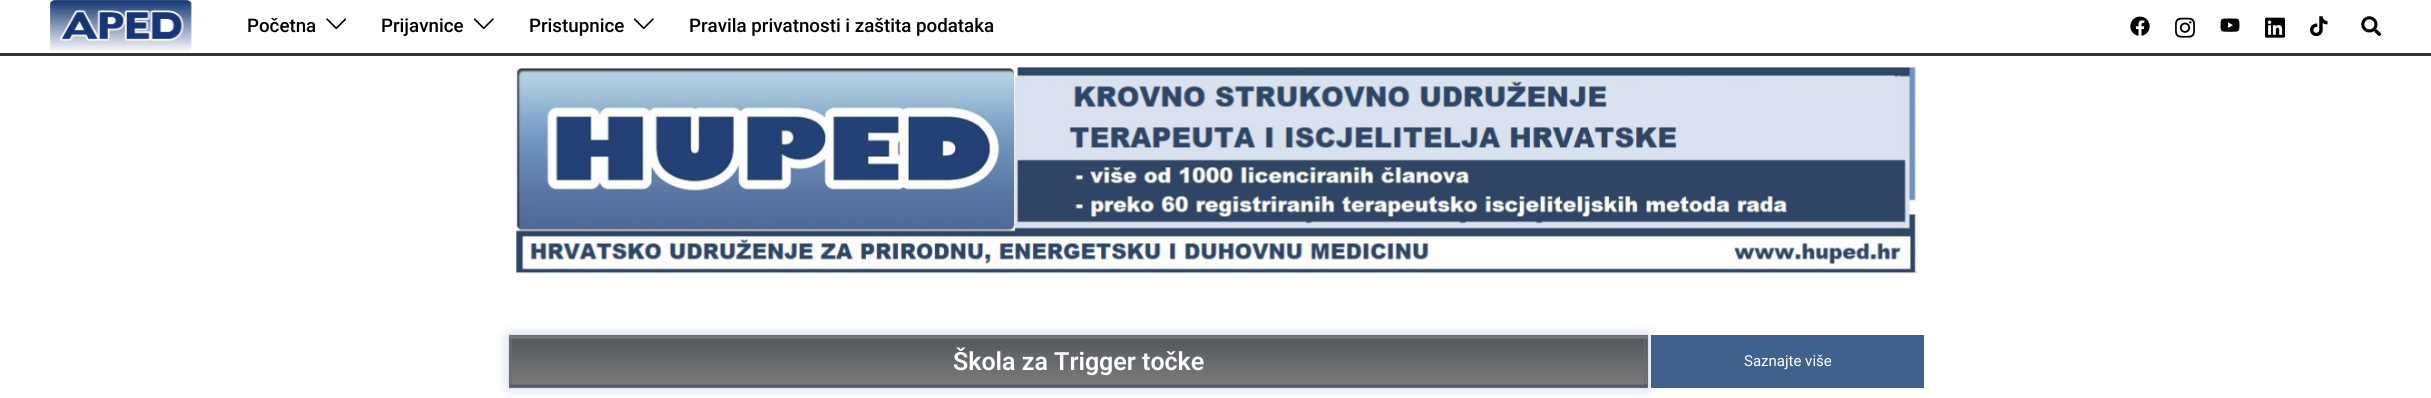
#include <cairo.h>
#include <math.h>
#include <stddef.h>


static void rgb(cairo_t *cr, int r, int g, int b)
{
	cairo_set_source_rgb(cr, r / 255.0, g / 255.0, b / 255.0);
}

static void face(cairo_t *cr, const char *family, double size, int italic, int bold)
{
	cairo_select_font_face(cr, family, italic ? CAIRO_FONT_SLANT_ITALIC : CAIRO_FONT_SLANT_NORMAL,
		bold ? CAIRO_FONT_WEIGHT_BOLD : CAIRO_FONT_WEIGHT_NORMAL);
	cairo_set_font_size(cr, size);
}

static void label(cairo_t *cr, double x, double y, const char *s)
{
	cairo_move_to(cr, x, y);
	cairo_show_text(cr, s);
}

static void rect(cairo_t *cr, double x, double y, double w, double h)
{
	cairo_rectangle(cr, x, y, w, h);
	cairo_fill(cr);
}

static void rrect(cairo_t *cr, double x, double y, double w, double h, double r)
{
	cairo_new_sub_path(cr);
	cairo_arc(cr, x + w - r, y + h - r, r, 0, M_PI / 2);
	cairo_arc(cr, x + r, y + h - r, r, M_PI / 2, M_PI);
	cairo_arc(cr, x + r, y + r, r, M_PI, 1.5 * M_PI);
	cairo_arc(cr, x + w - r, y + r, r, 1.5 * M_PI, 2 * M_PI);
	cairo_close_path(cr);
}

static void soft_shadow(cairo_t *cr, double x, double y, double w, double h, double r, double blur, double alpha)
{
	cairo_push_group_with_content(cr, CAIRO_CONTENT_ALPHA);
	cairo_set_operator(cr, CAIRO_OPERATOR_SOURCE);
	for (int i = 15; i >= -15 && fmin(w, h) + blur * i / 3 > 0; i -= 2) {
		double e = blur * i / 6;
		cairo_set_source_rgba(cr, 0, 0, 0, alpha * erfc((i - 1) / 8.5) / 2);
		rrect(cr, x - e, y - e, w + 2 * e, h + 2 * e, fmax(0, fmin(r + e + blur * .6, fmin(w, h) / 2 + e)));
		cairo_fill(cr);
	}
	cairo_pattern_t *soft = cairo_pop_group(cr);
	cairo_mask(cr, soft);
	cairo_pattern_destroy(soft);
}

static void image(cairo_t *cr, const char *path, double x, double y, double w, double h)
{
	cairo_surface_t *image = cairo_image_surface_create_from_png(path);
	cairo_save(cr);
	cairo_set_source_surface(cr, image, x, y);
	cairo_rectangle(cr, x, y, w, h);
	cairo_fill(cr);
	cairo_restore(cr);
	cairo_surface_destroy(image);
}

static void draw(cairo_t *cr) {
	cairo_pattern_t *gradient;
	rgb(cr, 255, 255, 255);
	cairo_paint(cr);
	rgb(cr, 51, 51, 51);
	rect(cr, 0, 53, 2431, 3);
	image(cr, "image0.png", 50, 0, 142, 52);
	face(cr, "Roboto Medium", 18.75, 0, 0);
	rgb(cr, 0, 0, 0);
	label(cr, 247, 32, "Početna");
	image(cr, "image1.png", 326, 18, 20, 12);
	label(cr, 381, 32, "Prijavnice");
	image(cr, "image2.png", 474, 18, 20, 12);
	label(cr, 529, 32, "Pristupnice");
	image(cr, "image2.png", 634, 18, 20, 12);
	label(cr, 689, 32, "Pravila privatnosti i zaštita podataka");
	image(cr, "image3.png", 2130, 16, 20, 20);
	image(cr, "image4.png", 2175, 17, 20, 21);
	image(cr, "image5.png", 2220, 18, 20, 14);
	image(cr, "image6.png", 2265, 17, 20, 21);
	image(cr, "image7.png", 2310, 16, 18, 20);
	image(cr, "image8.png", 2361, 16, 20, 20);
	image(cr, "image9.png", 516, 67, 1400, 207);
	image(cr, "image10.png", 1916, 70, 1, 203);
	rgb(cr, 140, 152, 212);
	soft_shadow(cr, 509, 335, 1139, 53, 0, 6, 0.5);
	gradient = cairo_pattern_create_linear(1078, 294, 1078, 339);
	cairo_pattern_add_color_stop_rgba(gradient, 0, 0.329, 0.349, 0.373, 1);
	cairo_pattern_add_color_stop_rgba(gradient, 1, 0.478, 0.478, 0.478, 1);
	cairo_set_source(cr, gradient);
	cairo_pattern_destroy(gradient);
	rect(cr, 509, 336, 1139, 3);
	gradient = cairo_pattern_create_linear(1078, 339, 1078, 384);
	cairo_pattern_add_color_stop_rgba(gradient, 0, 0.329, 0.349, 0.373, 1);
	cairo_pattern_add_color_stop_rgba(gradient, 1, 0.478, 0.478, 0.478, 1);
	cairo_set_source(cr, gradient);
	cairo_pattern_destroy(gradient);
	rect(cr, 510, 339, 1137, 45);
	gradient = cairo_pattern_create_linear(1078, 384, 1078, 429);
	cairo_pattern_add_color_stop_rgba(gradient, 0, 0.329, 0.349, 0.373, 1);
	cairo_pattern_add_color_stop_rgba(gradient, 1, 0.478, 0.478, 0.478, 1);
	cairo_set_source(cr, gradient);
	cairo_pattern_destroy(gradient);
	rect(cr, 509, 384, 1139, 3);
	cairo_rectangle(cr, 509.5, 335.5, 1138, 52);
	rgb(cr, 106, 107, 118);
	cairo_set_line_width(cr, 1);
	cairo_stroke(cr);
	cairo_rectangle(cr, 511.5, 338.5, 1133, 46);
	cairo_stroke(cr);
	face(cr, "Roboto SemiBold", 25, 0, 0);
	rgb(cr, 255, 255, 255);
	label(cr, 953, 370, "Škola za Trigger točke");
	rgb(cr, 63, 97, 140);
	rect(cr, 1651, 335, 273, 53);
	face(cr, "Roboto", 15, 0, 0);
	rgb(cr, 255, 255, 255);
	label(cr, 1744, 366, "Saznajte više");
}

int main(void) {
	cairo_surface_t *surface = cairo_image_surface_create(CAIRO_FORMAT_RGB24, 2431, 398);
	cairo_t *cr = cairo_create(surface);
	cairo_font_options_t *options = cairo_font_options_create();
	cairo_font_options_set_hint_metrics(options, CAIRO_HINT_METRICS_OFF);
	cairo_font_options_set_hint_style(options, CAIRO_HINT_STYLE_NONE);
	cairo_set_font_options(cr, options);
	cairo_set_miter_limit(cr, 4);
	draw(cr);
	cairo_surface_write_to_png(surface, "render.png");
	cairo_font_options_destroy(options);
	cairo_destroy(cr);
	cairo_surface_destroy(surface);
	return 0;
}
